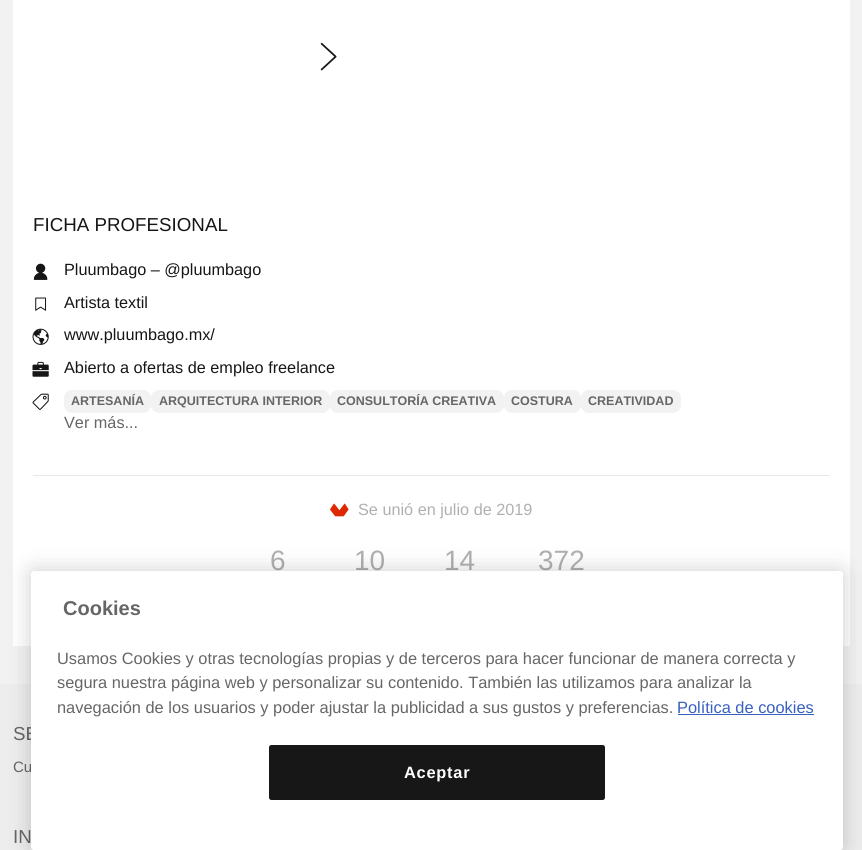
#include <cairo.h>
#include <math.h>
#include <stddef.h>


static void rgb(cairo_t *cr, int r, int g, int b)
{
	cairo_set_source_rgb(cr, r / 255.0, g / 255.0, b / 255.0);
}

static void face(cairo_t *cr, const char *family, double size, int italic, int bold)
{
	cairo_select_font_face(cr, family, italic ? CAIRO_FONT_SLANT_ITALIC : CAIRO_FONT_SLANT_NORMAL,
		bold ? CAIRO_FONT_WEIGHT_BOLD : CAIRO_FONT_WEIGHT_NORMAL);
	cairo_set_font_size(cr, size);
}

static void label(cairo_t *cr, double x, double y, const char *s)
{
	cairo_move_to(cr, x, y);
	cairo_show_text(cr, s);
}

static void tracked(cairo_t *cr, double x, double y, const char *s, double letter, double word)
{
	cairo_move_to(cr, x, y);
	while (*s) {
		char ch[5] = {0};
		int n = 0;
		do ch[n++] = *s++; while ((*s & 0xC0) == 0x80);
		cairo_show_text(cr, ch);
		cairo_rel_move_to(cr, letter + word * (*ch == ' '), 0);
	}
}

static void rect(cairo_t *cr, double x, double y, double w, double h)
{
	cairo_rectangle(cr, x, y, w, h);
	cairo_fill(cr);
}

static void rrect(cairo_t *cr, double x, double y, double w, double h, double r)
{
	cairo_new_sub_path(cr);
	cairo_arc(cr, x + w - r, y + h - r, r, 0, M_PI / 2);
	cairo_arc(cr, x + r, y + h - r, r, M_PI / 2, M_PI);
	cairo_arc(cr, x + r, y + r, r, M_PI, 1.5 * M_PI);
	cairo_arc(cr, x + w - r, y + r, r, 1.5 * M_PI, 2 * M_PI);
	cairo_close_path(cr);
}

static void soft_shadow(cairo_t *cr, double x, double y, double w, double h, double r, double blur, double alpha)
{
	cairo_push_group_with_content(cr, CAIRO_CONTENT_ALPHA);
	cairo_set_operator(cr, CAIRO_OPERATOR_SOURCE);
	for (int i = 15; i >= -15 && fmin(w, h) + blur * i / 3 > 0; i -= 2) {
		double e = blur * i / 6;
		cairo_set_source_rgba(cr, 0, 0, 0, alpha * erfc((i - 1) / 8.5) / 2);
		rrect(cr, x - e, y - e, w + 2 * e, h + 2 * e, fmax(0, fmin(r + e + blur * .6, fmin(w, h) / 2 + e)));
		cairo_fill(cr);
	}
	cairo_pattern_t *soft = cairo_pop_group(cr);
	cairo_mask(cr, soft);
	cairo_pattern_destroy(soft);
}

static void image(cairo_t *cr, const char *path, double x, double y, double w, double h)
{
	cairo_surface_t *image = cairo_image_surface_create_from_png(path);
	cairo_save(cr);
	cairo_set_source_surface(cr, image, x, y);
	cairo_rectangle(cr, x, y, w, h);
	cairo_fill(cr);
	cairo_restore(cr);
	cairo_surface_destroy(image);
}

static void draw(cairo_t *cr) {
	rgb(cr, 242, 242, 242);
	cairo_paint(cr);
	rgb(cr, 255, 255, 255);
	rect(cr, 13, 0, 837, 646);
	image(cr, "image0.png", 320, 42, 17, 29);
	face(cr, "Liberation Sans", 18.75, 0, 0);
	rgb(cr, 22, 22, 22);
	label(cr, 33, 231, "FICHA PROFESIONAL");
	image(cr, "image1.png", 33, 263, 15, 17);
	face(cr, "Liberation Sans", 16.25, 0, 0);
	label(cr, 64, 275, "Pluumbago – @pluumbago");
	image(cr, "image2.png", 35, 297, 12, 14);
	label(cr, 64, 308, "Artista textil");
	image(cr, "image3.png", 32, 328, 17, 17);
	label(cr, 64, 340, "www.pluumbago.mx/");
	image(cr, "image4.png", 32, 361, 17, 16);
	label(cr, 64, 373, "Abierto a ofertas de empleo freelance");
	image(cr, "image5.png", 32, 393, 17, 17);
	rgb(cr, 242, 242, 242);
	rrect(cr, 64, 390, 87, 23, 8);
	cairo_fill(cr);
	face(cr, "Liberation Sans", 12.5, 0, 1);
	rgb(cr, 102, 102, 102);
	label(cr, 71, 405, "ARTESANÍA");
	rgb(cr, 242, 242, 242);
	rrect(cr, 151, 390, 179, 23, 8);
	cairo_fill(cr);
	rgb(cr, 102, 102, 102);
	label(cr, 159, 405, "ARQUITECTURA INTERIOR");
	rgb(cr, 242, 242, 242);
	rrect(cr, 330, 390, 174, 23, 8);
	cairo_fill(cr);
	rgb(cr, 102, 102, 102);
	label(cr, 337, 405, "CONSULTORÍA CREATIVA");
	rgb(cr, 242, 242, 242);
	rrect(cr, 504, 390, 77, 23, 8);
	cairo_fill(cr);
	rgb(cr, 102, 102, 102);
	label(cr, 511, 405, "COSTURA");
	rgb(cr, 242, 242, 242);
	rrect(cr, 581, 390, 100, 23, 8);
	cairo_fill(cr);
	rgb(cr, 102, 102, 102);
	label(cr, 588, 405, "CREATIVIDAD");
	face(cr, "Liberation Sans", 16.25, 0, 0);
	label(cr, 64, 428, "Ver más...");
	rgb(cr, 232, 232, 232);
	rect(cr, 33, 475, 797, 1);
	image(cr, "image6.png", 330, 503, 19, 14);
	rgb(cr, 176, 176, 176);
	label(cr, 358, 515, "Se unió en julio de 2019");
	face(cr, "Liberation Sans", 28, 0, 0);
	label(cr, 270, 570, "6");
	label(cr, 354, 570, "10");
	label(cr, 444, 570, "14");
	label(cr, 538, 570, "372");
	rgb(cr, 237, 237, 237);
	rect(cr, 0, 684, 862, 166);
	face(cr, "Liberation Sans", 18.75, 0, 0);
	rgb(cr, 102, 102, 102);
	label(cr, 13, 740, "SE");
	face(cr, "Liberation Sans", 15, 0, 0);
	label(cr, 13, 772, "Cu");
	face(cr, "Liberation Sans", 18.75, 0, 0);
	label(cr, 13, 843, "IN");
	rgb(cr, 0, 0, 0);
	soft_shadow(cr, 31, 571, 812, 279, 3, 11, 0.2);
	rgb(cr, 255, 255, 255);
	rrect(cr, 31, 571, 812, 279, 3);
	cairo_fill(cr);
	face(cr, "Liberation Sans", 20, 0, 1);
	rgb(cr, 102, 102, 102);
	label(cr, 63, 615, "Cookies");
	face(cr, "Liberation Sans", 16.4, 0, 0);
	label(cr, 57, 664, "Usamos Cookies y otras tecnologías propias y de terceros para hacer funcionar de manera correcta y");
	label(cr, 57, 688, "segura nuestra página web y personalizar su contenido. También las utilizamos para analizar la");
	label(cr, 57, 713, "navegación de los usuarios y poder ajustar la publicidad a sus gustos y preferencias.");
	rgb(cr, 56, 96, 190);
	label(cr, 677, 713, "Política de cookies");
	rect(cr, 678, 714, 136, 1);
	rgb(cr, 23, 23, 23);
	rrect(cr, 269.5, 745.5, 335, 54, 2);
	cairo_fill_preserve(cr);
	cairo_set_line_width(cr, 1);
	cairo_stroke(cr);
	face(cr, "Liberation Sans", 16.4, 0, 1);
	rgb(cr, 255, 255, 255);
	tracked(cr, 404, 778, "Aceptar", 0.75, 0);
}

int main(void) {
	cairo_surface_t *surface = cairo_image_surface_create(CAIRO_FORMAT_RGB24, 862, 850);
	cairo_t *cr = cairo_create(surface);
	cairo_font_options_t *options = cairo_font_options_create();
	cairo_font_options_set_hint_metrics(options, CAIRO_HINT_METRICS_OFF);
	cairo_font_options_set_hint_style(options, CAIRO_HINT_STYLE_NONE);
	cairo_set_font_options(cr, options);
	cairo_set_miter_limit(cr, 4);
	draw(cr);
	cairo_surface_write_to_png(surface, "render.png");
	cairo_font_options_destroy(options);
	cairo_destroy(cr);
	cairo_surface_destroy(surface);
	return 0;
}
